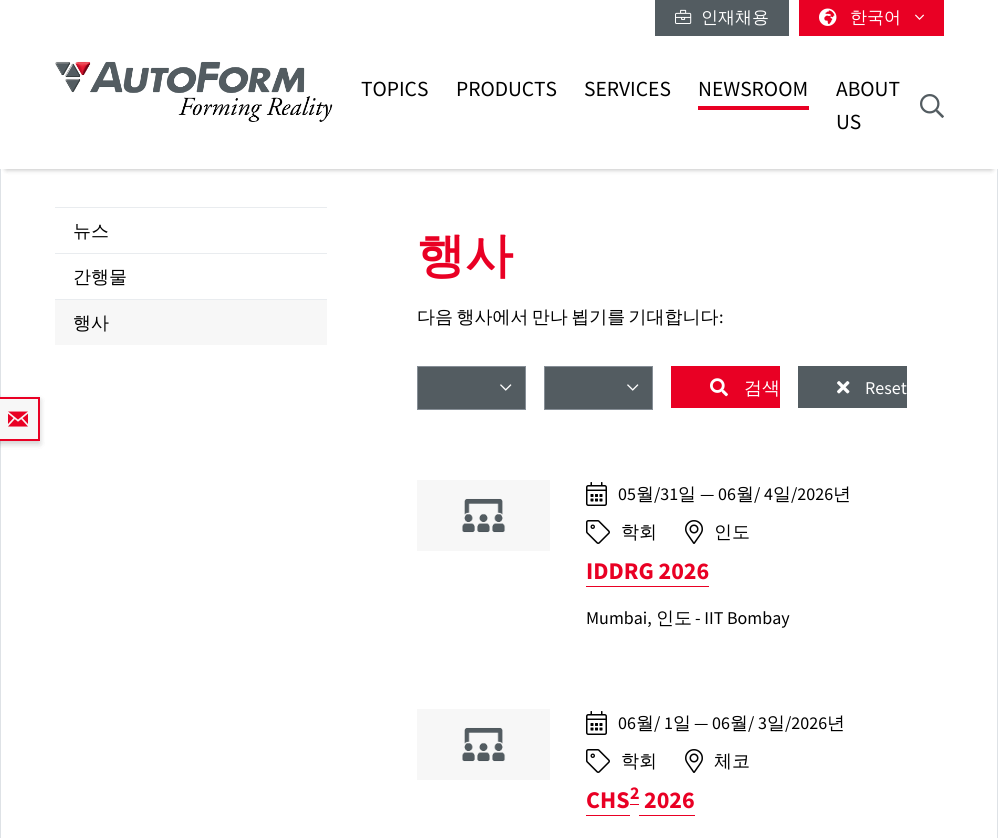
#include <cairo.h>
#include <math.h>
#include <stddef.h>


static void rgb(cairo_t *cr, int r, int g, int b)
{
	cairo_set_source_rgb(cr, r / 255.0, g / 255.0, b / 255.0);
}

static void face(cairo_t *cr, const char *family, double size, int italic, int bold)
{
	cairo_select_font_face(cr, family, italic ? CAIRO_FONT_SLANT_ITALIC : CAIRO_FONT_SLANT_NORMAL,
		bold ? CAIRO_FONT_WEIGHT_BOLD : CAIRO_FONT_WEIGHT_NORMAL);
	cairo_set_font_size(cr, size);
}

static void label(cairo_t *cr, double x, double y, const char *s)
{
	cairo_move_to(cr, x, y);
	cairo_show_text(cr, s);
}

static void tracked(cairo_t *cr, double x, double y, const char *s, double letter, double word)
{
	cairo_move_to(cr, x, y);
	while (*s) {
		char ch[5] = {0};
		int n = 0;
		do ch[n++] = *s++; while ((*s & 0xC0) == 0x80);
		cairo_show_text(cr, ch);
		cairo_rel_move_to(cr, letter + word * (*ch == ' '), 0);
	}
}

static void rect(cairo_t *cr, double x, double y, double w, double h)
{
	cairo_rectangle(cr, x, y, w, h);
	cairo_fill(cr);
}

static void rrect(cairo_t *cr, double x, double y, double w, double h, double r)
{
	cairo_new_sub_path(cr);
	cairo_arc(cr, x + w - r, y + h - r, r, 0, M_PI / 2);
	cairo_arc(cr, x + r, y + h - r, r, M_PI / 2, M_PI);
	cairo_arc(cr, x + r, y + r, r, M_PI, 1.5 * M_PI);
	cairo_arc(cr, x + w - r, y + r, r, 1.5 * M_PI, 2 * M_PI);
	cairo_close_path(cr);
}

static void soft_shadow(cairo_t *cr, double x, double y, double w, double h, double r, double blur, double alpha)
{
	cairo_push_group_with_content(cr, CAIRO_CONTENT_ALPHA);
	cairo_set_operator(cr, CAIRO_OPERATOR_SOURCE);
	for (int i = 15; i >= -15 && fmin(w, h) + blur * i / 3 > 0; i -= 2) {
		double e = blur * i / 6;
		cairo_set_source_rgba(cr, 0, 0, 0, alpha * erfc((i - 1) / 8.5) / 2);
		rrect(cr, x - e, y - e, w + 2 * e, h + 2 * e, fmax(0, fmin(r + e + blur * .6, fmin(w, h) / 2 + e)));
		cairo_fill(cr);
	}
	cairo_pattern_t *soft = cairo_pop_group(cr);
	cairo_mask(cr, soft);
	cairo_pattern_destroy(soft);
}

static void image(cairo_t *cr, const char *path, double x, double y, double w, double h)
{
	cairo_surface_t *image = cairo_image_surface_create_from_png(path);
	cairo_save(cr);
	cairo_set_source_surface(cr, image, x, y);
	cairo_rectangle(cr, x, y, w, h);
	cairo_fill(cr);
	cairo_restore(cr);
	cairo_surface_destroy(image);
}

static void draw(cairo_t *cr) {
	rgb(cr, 255, 255, 255);
	cairo_paint(cr);
	rgb(cr, 222, 226, 230);
	rect(cr, 997, 169, 1, 669);
	rect(cr, 0, 169, 1, 669);
	rgb(cr, 83, 92, 97);
	rect(cr, 655, 0, 134, 36);
	image(cr, "image0.png", 675, 9, 17, 15);
	face(cr, "WenQuanYi Zen Hei Medium", 17, 0, 0);
	rgb(cr, 255, 255, 255);
	label(cr, 701, 23, "인재채용");
	rgb(cr, 233, 0, 36);
	rect(cr, 799, 0, 145, 36);
	image(cr, "image1.png", 819, 8, 18, 18);
	rgb(cr, 255, 255, 255);
	label(cr, 850, 23, "한국어");
	image(cr, "image2.png", 915, 14, 9, 6);
	rgb(cr, 0, 0, 0);
	soft_shadow(cr, 6, 48, 986, 121, 0, 3, 0.16);
	soft_shadow(cr, 6, 48, 986, 121, 0, 3, 0.16);
	rgb(cr, 255, 255, 255);
	rect(cr, 0, 42, 998, 127);
	image(cr, "image3.png", 55, 61, 278, 61);
	face(cr, "Source Sans Pro", 21.5, 0, 0);
	rgb(cr, 0, 0, 0);
	label(cr, 361, 96, "TOPICS");
	label(cr, 456, 96, "PRODUCTS");
	label(cr, 584, 96, "SERVICES");
	label(cr, 698, 96, "NEWSROOM");
	rgb(cr, 233, 0, 36);
	rect(cr, 698, 106, 111, 4);
	rgb(cr, 0, 0, 0);
	label(cr, 836, 96, "ABOUT");
	label(cr, 836, 129, "US");
	image(cr, "image4.png", 920, 94, 24, 24);
	rgb(cr, 0, 0, 0);
	soft_shadow(cr, -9, 400, 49, 44, 0, 3, 0.1);
	soft_shadow(cr, -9, 400, 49, 44, 0, 3, 0.1);
	rgb(cr, 233, 0, 36);
	rect(cr, 0, 397, 40, 2);
	rect(cr, 38, 397, 2, 44);
	rect(cr, 0, 439, 40, 2);
	rgb(cr, 247, 247, 247);
	rect(cr, 0, 399, 38, 40);
	image(cr, "image5.png", 8, 411, 20, 16);
	rgb(cr, 233, 236, 239);
	rect(cr, 55, 207, 272, 1);
	face(cr, "WenQuanYi Zen Hei Medium", 18, 0, 0);
	rgb(cr, 0, 0, 0);
	label(cr, 73, 237, "뉴스");
	rgb(cr, 233, 236, 239);
	rect(cr, 55, 253, 272, 1);
	rgb(cr, 0, 0, 0);
	label(cr, 73, 283, "간행물");
	rgb(cr, 247, 247, 247);
	rect(cr, 55, 300, 272, 45);
	rgb(cr, 233, 236, 239);
	rect(cr, 55, 299, 272, 1);
	rgb(cr, 0, 0, 0);
	label(cr, 73, 329, "행사");
	face(cr, "WenQuanYi Zen Hei", 48, 0, 1);
	rgb(cr, 233, 0, 36);
	label(cr, 417, 272, "행사");
	face(cr, "WenQuanYi Zen Hei Medium", 18, 0, 0);
	rgb(cr, 0, 0, 0);
	tracked(cr, 417, 323, "다음 행사에서 만나 뵙기를 기대합니다", 0, -2);
	face(cr, "Source Sans Pro", 18, 0, 0);
	label(cr, 719, 323, ":");
	rgb(cr, 83, 92, 97);
	cairo_rectangle(cr, 417.5, 366.5, 108, 43);
	cairo_fill_preserve(cr);
	rgb(cr, 134, 142, 150);
	cairo_set_line_width(cr, 1);
	cairo_stroke(cr);
	image(cr, "image6.png", 500, 384, 12, 7);
	rgb(cr, 83, 92, 97);
	cairo_rectangle(cr, 544.5, 366.5, 108, 43);
	cairo_fill_preserve(cr);
	rgb(cr, 134, 142, 150);
	cairo_stroke(cr);
	image(cr, "image6.png", 627, 384, 12, 7);
	rgb(cr, 233, 0, 36);
	rect(cr, 671, 366, 109, 42);
	image(cr, "image7.png", 710, 378, 18, 19);
	face(cr, "WenQuanYi Zen Hei Medium", 18, 0, 0);
	rgb(cr, 255, 255, 255);
	label(cr, 744, 394, "검색");
	rgb(cr, 83, 92, 97);
	rect(cr, 798, 366, 109, 42);
	image(cr, "image8.png", 837, 381, 13, 13);
	face(cr, "Source Sans Pro", 18, 0, 0);
	rgb(cr, 255, 255, 255);
	label(cr, 865, 394, "Reset");
	image(cr, "image9.png", 417, 480, 133, 71);
	image(cr, "image10.png", 586, 482, 21, 24);
	rgb(cr, 0, 0, 0);
	label(cr, 618, 500, "05");
	face(cr, "WenQuanYi Zen Hei Medium", 18, 0, 0);
	label(cr, 636, 500, "월");
	face(cr, "Source Sans Pro", 18, 0, 0);
	label(cr, 654, 500, "/31");
	face(cr, "WenQuanYi Zen Hei Medium", 18, 0, 0);
	label(cr, 678, 500, "일");
	face(cr, "Source Sans Pro", 18, 0, 0);
	label(cr, 700, 500, "— 06");
	face(cr, "WenQuanYi Zen Hei Medium", 18, 0, 0);
	label(cr, 736, 500, "월");
	face(cr, "Source Sans Pro", 18, 0, 0);
	label(cr, 754, 500, "/ 4");
	face(cr, "WenQuanYi Zen Hei Medium", 18, 0, 0);
	label(cr, 773, 500, "일");
	face(cr, "Source Sans Pro", 18, 0, 0);
	label(cr, 791, 500, "/2026");
	face(cr, "WenQuanYi Zen Hei Medium", 18, 0, 0);
	label(cr, 833, 500, "년");
	image(cr, "image11.png", 586, 520, 24, 24);
	label(cr, 621, 538, "학회");
	image(cr, "image12.png", 685, 520, 18, 24);
	label(cr, 714, 538, "인도");
	face(cr, "Source Sans Pro", 24, 0, 1);
	rgb(cr, 233, 0, 36);
	label(cr, 586, 579, "IDDRG 2026");
	rect(cr, 586, 586, 123, 1);
	face(cr, "Source Sans Pro", 18, 0, 0);
	rgb(cr, 0, 0, 0);
	label(cr, 586, 624, "Mumbai,");
	face(cr, "WenQuanYi Zen Hei Medium", 18, 0, 0);
	label(cr, 656, 624, "인도");
	face(cr, "Source Sans Pro", 18, 0, 0);
	label(cr, 695, 624, "- IIT Bombay");
	image(cr, "image9.png", 417, 709, 133, 71);
	image(cr, "image10.png", 586, 711, 21, 24);
	label(cr, 618, 729, "06");
	face(cr, "WenQuanYi Zen Hei Medium", 18, 0, 0);
	label(cr, 636, 729, "월");
	face(cr, "Source Sans Pro", 18, 0, 0);
	label(cr, 654, 729, "/ 1");
	face(cr, "WenQuanYi Zen Hei Medium", 18, 0, 0);
	label(cr, 673, 729, "일");
	face(cr, "Source Sans Pro", 18, 0, 0);
	label(cr, 694, 729, "— 06");
	face(cr, "WenQuanYi Zen Hei Medium", 18, 0, 0);
	label(cr, 730, 729, "월");
	face(cr, "Source Sans Pro", 18, 0, 0);
	label(cr, 748, 729, "/ 3");
	face(cr, "WenQuanYi Zen Hei Medium", 18, 0, 0);
	label(cr, 767, 729, "일");
	face(cr, "Source Sans Pro", 18, 0, 0);
	label(cr, 785, 729, "/2026");
	face(cr, "WenQuanYi Zen Hei Medium", 18, 0, 0);
	label(cr, 827, 729, "년");
	image(cr, "image11.png", 586, 749, 24, 24);
	label(cr, 621, 767, "학회");
	image(cr, "image12.png", 685, 749, 18, 24);
	label(cr, 714, 767, "체코");
	face(cr, "Source Sans Pro", 24, 0, 1);
	rgb(cr, 233, 0, 36);
	label(cr, 586, 808, "CHS");
	rect(cr, 586, 815, 44, 1);
	rect(cr, 630, 804, 9, 1);
	face(cr, "Source Sans Pro", 18, 0, 1);
	label(cr, 630, 799, "2");
	face(cr, "Source Sans Pro", 24, 0, 1);
	label(cr, 644, 808, "2026");
	rect(cr, 639, 815, 56, 1);
}

int main(void) {
	cairo_surface_t *surface = cairo_image_surface_create(CAIRO_FORMAT_RGB24, 998, 838);
	cairo_t *cr = cairo_create(surface);
	cairo_font_options_t *options = cairo_font_options_create();
	cairo_font_options_set_hint_metrics(options, CAIRO_HINT_METRICS_OFF);
	cairo_font_options_set_hint_style(options, CAIRO_HINT_STYLE_NONE);
	cairo_set_font_options(cr, options);
	cairo_set_miter_limit(cr, 4);
	draw(cr);
	cairo_surface_write_to_png(surface, "render.png");
	cairo_font_options_destroy(options);
	cairo_destroy(cr);
	cairo_surface_destroy(surface);
	return 0;
}
